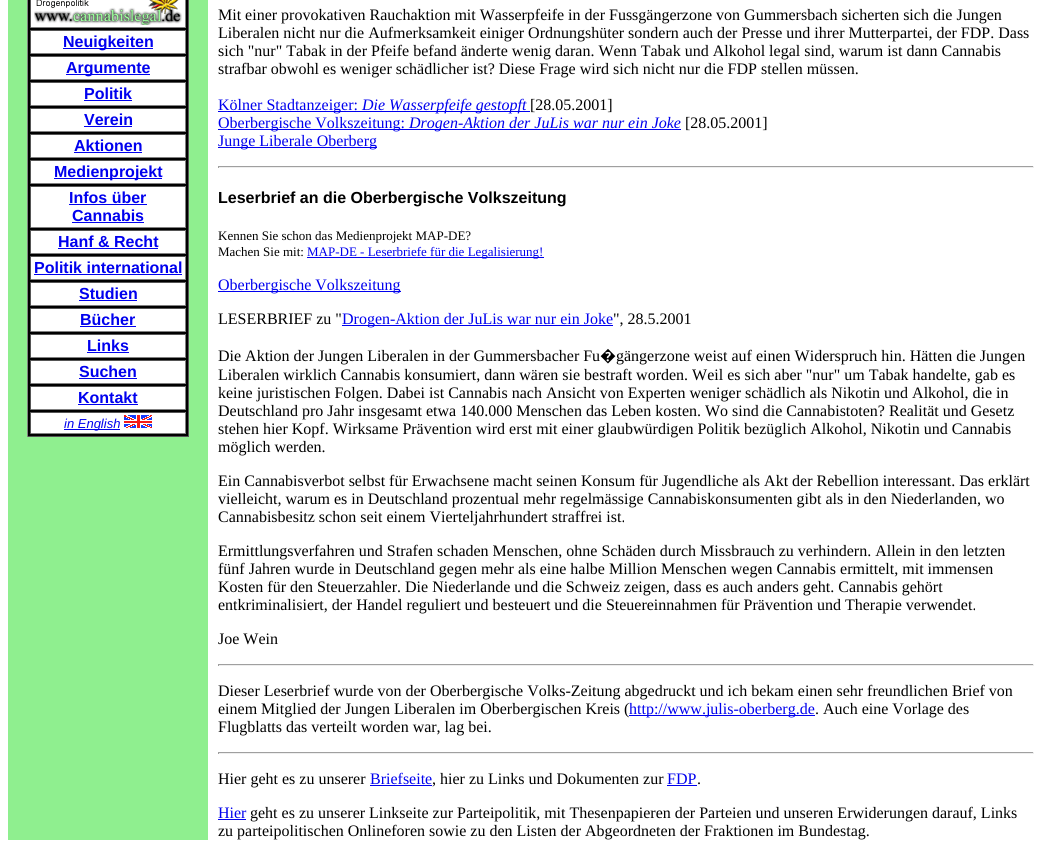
#include <cairo.h>
#include <math.h>
#include <stddef.h>


static void rgb(cairo_t *cr, int r, int g, int b)
{
	cairo_set_source_rgb(cr, r / 255.0, g / 255.0, b / 255.0);
}

static void face(cairo_t *cr, const char *family, double size, int italic, int bold)
{
	cairo_select_font_face(cr, family, italic ? CAIRO_FONT_SLANT_ITALIC : CAIRO_FONT_SLANT_NORMAL,
		bold ? CAIRO_FONT_WEIGHT_BOLD : CAIRO_FONT_WEIGHT_NORMAL);
	cairo_set_font_size(cr, size);
}

static void label(cairo_t *cr, double x, double y, const char *s)
{
	cairo_move_to(cr, x, y);
	cairo_show_text(cr, s);
}

static void rect(cairo_t *cr, double x, double y, double w, double h)
{
	cairo_rectangle(cr, x, y, w, h);
	cairo_fill(cr);
}

static void image(cairo_t *cr, const char *path, double x, double y, double w, double h)
{
	cairo_surface_t *image = cairo_image_surface_create_from_png(path);
	cairo_save(cr);
	cairo_set_source_surface(cr, image, x, y);
	cairo_rectangle(cr, x, y, w, h);
	cairo_fill(cr);
	cairo_restore(cr);
	cairo_surface_destroy(image);
}

static void draw(cairo_t *cr) {
	rgb(cr, 255, 255, 255);
	cairo_paint(cr);
	rgb(cr, 143, 239, 143);
	rect(cr, 8, 0, 200, 840);
	rgb(cr, 0, 0, 0);
	rect(cr, 28, 0, 160, 436);
	rgb(cr, 85, 85, 85);
	rect(cr, 188, 0, 1, 437);
	rect(cr, 27, 436, 162, 1);
	rgb(cr, 128, 128, 128);
	rect(cr, 27, 0, 1, 437);
	rgb(cr, 255, 255, 255);
	rect(cr, 31, 0, 154, 27);
	rgb(cr, 128, 128, 128);
	rect(cr, 185, 0, 1, 28);
	rect(cr, 30, 27, 156, 1);
	rgb(cr, 85, 85, 85);
	rect(cr, 30, 0, 1, 28);
	image(cr, "image0.png", 34, 0, 148, 25);
	rgb(cr, 255, 255, 255);
	rect(cr, 31, 31, 154, 22);
	rgb(cr, 85, 85, 85);
	rect(cr, 30, 30, 156, 1);
	rgb(cr, 128, 128, 128);
	rect(cr, 185, 30, 1, 24);
	rect(cr, 30, 53, 156, 1);
	rgb(cr, 85, 85, 85);
	rect(cr, 30, 30, 1, 24);
	rgb(cr, 0, 0, 238);
	rect(cr, 63, 48, 90, 1);
	face(cr, "Liberation Sans", 16, 0, 1);
	label(cr, 63, 47, "Neuigkeiten");
	rgb(cr, 255, 255, 255);
	rect(cr, 31, 57, 154, 22);
	rgb(cr, 85, 85, 85);
	rect(cr, 30, 56, 156, 1);
	rgb(cr, 128, 128, 128);
	rect(cr, 185, 56, 1, 24);
	rect(cr, 30, 79, 156, 1);
	rgb(cr, 85, 85, 85);
	rect(cr, 30, 56, 1, 24);
	rgb(cr, 0, 0, 238);
	rect(cr, 66, 74, 84, 1);
	label(cr, 66, 73, "Argumente");
	rgb(cr, 255, 255, 255);
	rect(cr, 31, 83, 154, 22);
	rgb(cr, 85, 85, 85);
	rect(cr, 30, 82, 156, 1);
	rgb(cr, 128, 128, 128);
	rect(cr, 185, 82, 1, 24);
	rect(cr, 30, 105, 156, 1);
	rgb(cr, 85, 85, 85);
	rect(cr, 30, 82, 1, 24);
	rgb(cr, 0, 0, 238);
	label(cr, 84, 99, "Politik");
	rect(cr, 84, 100, 48, 1);
	rgb(cr, 255, 255, 255);
	rect(cr, 31, 109, 154, 22);
	rgb(cr, 85, 85, 85);
	rect(cr, 30, 108, 156, 1);
	rgb(cr, 128, 128, 128);
	rect(cr, 185, 108, 1, 24);
	rect(cr, 30, 131, 156, 1);
	rgb(cr, 85, 85, 85);
	rect(cr, 30, 108, 1, 24);
	rgb(cr, 0, 0, 238);
	label(cr, 84, 125, "Verein");
	rect(cr, 84, 126, 48, 1);
	rgb(cr, 255, 255, 255);
	rect(cr, 31, 135, 154, 22);
	rgb(cr, 85, 85, 85);
	rect(cr, 30, 134, 156, 1);
	rgb(cr, 128, 128, 128);
	rect(cr, 185, 134, 1, 24);
	rect(cr, 30, 157, 156, 1);
	rgb(cr, 85, 85, 85);
	rect(cr, 30, 134, 1, 24);
	rgb(cr, 0, 0, 238);
	label(cr, 74, 151, "Aktionen");
	rect(cr, 74, 152, 68, 1);
	rgb(cr, 255, 255, 255);
	rect(cr, 31, 161, 154, 22);
	rgb(cr, 85, 85, 85);
	rect(cr, 30, 160, 156, 1);
	rgb(cr, 128, 128, 128);
	rect(cr, 185, 160, 1, 24);
	rect(cr, 30, 183, 156, 1);
	rgb(cr, 85, 85, 85);
	rect(cr, 30, 160, 1, 24);
	rgb(cr, 0, 0, 238);
	rect(cr, 54, 178, 108, 1);
	label(cr, 54, 177, "Medienprojekt");
	rgb(cr, 255, 255, 255);
	rect(cr, 31, 187, 154, 40);
	rgb(cr, 85, 85, 85);
	rect(cr, 30, 186, 156, 1);
	rgb(cr, 128, 128, 128);
	rect(cr, 185, 186, 1, 42);
	rect(cr, 30, 227, 156, 1);
	rgb(cr, 85, 85, 85);
	rect(cr, 30, 186, 1, 42);
	rgb(cr, 0, 0, 238);
	label(cr, 69, 203, "Infos über");
	rect(cr, 69, 204, 78, 1);
	label(cr, 72, 221, "Cannabis");
	rect(cr, 72, 222, 72, 1);
	rgb(cr, 255, 255, 255);
	rect(cr, 31, 231, 154, 22);
	rgb(cr, 85, 85, 85);
	rect(cr, 30, 230, 156, 1);
	rgb(cr, 128, 128, 128);
	rect(cr, 185, 230, 1, 24);
	rect(cr, 30, 253, 156, 1);
	rgb(cr, 85, 85, 85);
	rect(cr, 30, 230, 1, 24);
	rgb(cr, 0, 0, 238);
	label(cr, 58, 247, "Hanf & Recht");
	rect(cr, 58, 248, 100, 1);
	rgb(cr, 255, 255, 255);
	rect(cr, 31, 257, 154, 22);
	rgb(cr, 85, 85, 85);
	rect(cr, 30, 256, 156, 1);
	rgb(cr, 128, 128, 128);
	rect(cr, 185, 256, 1, 24);
	rect(cr, 30, 279, 156, 1);
	rgb(cr, 85, 85, 85);
	rect(cr, 30, 256, 1, 24);
	rgb(cr, 0, 0, 238);
	label(cr, 34, 273, "Politik international");
	rect(cr, 34, 274, 148, 1);
	rgb(cr, 255, 255, 255);
	rect(cr, 31, 283, 154, 22);
	rgb(cr, 85, 85, 85);
	rect(cr, 30, 282, 156, 1);
	rgb(cr, 128, 128, 128);
	rect(cr, 185, 282, 1, 24);
	rect(cr, 30, 305, 156, 1);
	rgb(cr, 85, 85, 85);
	rect(cr, 30, 282, 1, 24);
	rgb(cr, 0, 0, 238);
	label(cr, 79, 299, "Studien");
	rect(cr, 79, 300, 58, 1);
	rgb(cr, 255, 255, 255);
	rect(cr, 31, 309, 154, 22);
	rgb(cr, 85, 85, 85);
	rect(cr, 30, 308, 156, 1);
	rgb(cr, 128, 128, 128);
	rect(cr, 185, 308, 1, 24);
	rect(cr, 30, 331, 156, 1);
	rgb(cr, 85, 85, 85);
	rect(cr, 30, 308, 1, 24);
	rgb(cr, 0, 0, 238);
	label(cr, 80, 325, "Bücher");
	rect(cr, 80, 326, 56, 1);
	rgb(cr, 255, 255, 255);
	rect(cr, 31, 335, 154, 22);
	rgb(cr, 85, 85, 85);
	rect(cr, 30, 334, 156, 1);
	rgb(cr, 128, 128, 128);
	rect(cr, 185, 334, 1, 24);
	rect(cr, 30, 357, 156, 1);
	rgb(cr, 85, 85, 85);
	rect(cr, 30, 334, 1, 24);
	rgb(cr, 0, 0, 238);
	label(cr, 87, 351, "Links");
	rect(cr, 87, 352, 42, 1);
	rgb(cr, 255, 255, 255);
	rect(cr, 31, 361, 154, 22);
	rgb(cr, 85, 85, 85);
	rect(cr, 30, 360, 156, 1);
	rgb(cr, 128, 128, 128);
	rect(cr, 185, 360, 1, 24);
	rect(cr, 30, 383, 156, 1);
	rgb(cr, 85, 85, 85);
	rect(cr, 30, 360, 1, 24);
	rgb(cr, 0, 0, 238);
	label(cr, 79, 377, "Suchen");
	rect(cr, 79, 378, 58, 1);
	rgb(cr, 255, 255, 255);
	rect(cr, 31, 387, 154, 22);
	rgb(cr, 85, 85, 85);
	rect(cr, 30, 386, 156, 1);
	rgb(cr, 128, 128, 128);
	rect(cr, 185, 386, 1, 24);
	rect(cr, 30, 409, 156, 1);
	rgb(cr, 85, 85, 85);
	rect(cr, 30, 386, 1, 24);
	rgb(cr, 0, 0, 238);
	label(cr, 78, 403, "Kontakt");
	rect(cr, 78, 404, 60, 1);
	rgb(cr, 255, 255, 255);
	rect(cr, 31, 413, 154, 20);
	rgb(cr, 85, 85, 85);
	rect(cr, 30, 412, 156, 1);
	rgb(cr, 128, 128, 128);
	rect(cr, 185, 412, 1, 22);
	rect(cr, 30, 433, 156, 1);
	rgb(cr, 85, 85, 85);
	rect(cr, 30, 412, 1, 22);
	rgb(cr, 0, 0, 238);
	rect(cr, 64, 429, 56, 1);
	face(cr, "Liberation Sans", 13, 1, 0);
	label(cr, 64, 428, "in English");
	image(cr, "image1.png", 124, 415, 28, 13);
	face(cr, "Liberation Serif", 16, 0, 0);
	rgb(cr, 0, 0, 0);
	label(cr, 218, 20, "Mit einer provokativen Rauchaktion mit Wasserpfeife in der Fussgängerzone von Gummersbach sicherten sich die Jungen");
	label(cr, 218, 38, "Liberalen nicht nur die Aufmerksamkeit einiger Ordnungshüter sondern auch der Presse und ihrer Mutterpartei, der FDP. Dass");
	label(cr, 218, 56, "sich \"nur\" Tabak in der Pfeife befand änderte wenig daran. Wenn Tabak und Alkohol legal sind, warum ist dann Cannabis");
	label(cr, 218, 74, "strafbar obwohl es weniger schädlicher ist? Diese Frage wird sich nicht nur die FDP stellen müssen.");
	rgb(cr, 0, 0, 238);
	rect(cr, 218, 111, 312, 1);
	label(cr, 218, 110, "Kölner Stadtanzeiger:");
	face(cr, "Liberation Serif", 16, 1, 0);
	label(cr, 362, 110, "Die Wasserpfeife gestopft");
	face(cr, "Liberation Serif", 16, 0, 0);
	rgb(cr, 0, 0, 0);
	label(cr, 530, 110, "[28.05.2001]");
	rgb(cr, 0, 0, 238);
	rect(cr, 218, 129, 463, 1);
	label(cr, 218, 128, "Oberbergische Volkszeitung:");
	face(cr, "Liberation Serif", 16, 1, 0);
	label(cr, 409, 128, "Drogen-Aktion der JuLis war nur ein Joke");
	face(cr, "Liberation Serif", 16, 0, 0);
	rgb(cr, 0, 0, 0);
	label(cr, 685, 128, "[28.05.2001]");
	rgb(cr, 0, 0, 238);
	rect(cr, 218, 147, 159, 1);
	label(cr, 218, 146, "Junge Liberale Oberberg");
	rgb(cr, 159, 159, 159);
	rect(cr, 218, 166, 816, 1);
	rgb(cr, 238, 238, 238);
	rect(cr, 1033, 166, 1, 2);
	rect(cr, 218, 167, 816, 1);
	rgb(cr, 159, 159, 159);
	rect(cr, 218, 166, 1, 2);
	face(cr, "Liberation Sans", 16, 0, 1);
	rgb(cr, 0, 0, 0);
	label(cr, 218, 203, "Leserbrief an die Oberbergische Volkszeitung");
	face(cr, "Liberation Serif", 13, 0, 0);
	label(cr, 218, 240, "Kennen Sie schon das Medienprojekt MAP-DE?");
	label(cr, 218, 256, "Machen Sie mit:");
	rgb(cr, 0, 0, 238);
	rect(cr, 307, 257, 237, 1);
	label(cr, 307, 256, "MAP-DE - Leserbriefe für die Legalisierung!");
	rect(cr, 218, 291, 183, 1);
	face(cr, "Liberation Serif", 16, 0, 0);
	label(cr, 218, 290, "Oberbergische Volkszeitung");
	rgb(cr, 0, 0, 0);
	label(cr, 218, 324, "LESERBRIEF zu \"");
	rgb(cr, 0, 0, 238);
	rect(cr, 342, 325, 271, 1);
	label(cr, 342, 324, "Drogen-Aktion der JuLis war nur ein Joke");
	rgb(cr, 0, 0, 0);
	label(cr, 613, 324, "\", 28.5.2001");
	label(cr, 218, 361, "Die Aktion der Jungen Liberalen in der Gummersbacher Fu");
	face(cr, "Noto Sans", 16, 0, 0);
	label(cr, 600, 361, "�");
	face(cr, "Liberation Serif", 16, 0, 0);
	label(cr, 616, 361, "gängerzone weist auf einen Widerspruch hin. Hätten die Jungen");
	label(cr, 218, 380, "Liberalen wirklich Cannabis konsumiert, dann wären sie bestraft worden. Weil es sich aber \"nur\" um Tabak handelte, gab es");
	label(cr, 218, 398, "keine juristischen Folgen. Dabei ist Cannabis nach Ansicht von Experten weniger schädlich als Nikotin und Alkohol, die in");
	label(cr, 218, 416, "Deutschland pro Jahr insgesamt etwa 140.000 Menschen das Leben kosten. Wo sind die Cannabistoten? Realität und Gesetz");
	label(cr, 218, 434, "stehen hier Kopf. Wirksame Prävention wird erst mit einer glaubwürdigen Politik bezüglich Alkohol, Nikotin und Cannabis");
	label(cr, 218, 452, "möglich werden.");
	label(cr, 218, 486, "Ein Cannabisverbot selbst für Erwachsene macht seinen Konsum für Jugendliche als Akt der Rebellion interessant. Das erklärt");
	label(cr, 218, 504, "vielleicht, warum es in Deutschland prozentual mehr regelmässige Cannabiskonsumenten gibt als in den Niederlanden, wo");
	label(cr, 218, 522, "Cannabisbesitz schon seit einem Vierteljahrhundert straffrei ist.");
	label(cr, 218, 556, "Ermittlungsverfahren und Strafen schaden Menschen, ohne Schäden durch Missbrauch zu verhindern. Allein in den letzten");
	label(cr, 218, 574, "fünf Jahren wurde in Deutschland gegen mehr als eine halbe Million Menschen wegen Cannabis ermittelt, mit immensen");
	label(cr, 218, 592, "Kosten für den Steuerzahler. Die Niederlande und die Schweiz zeigen, dass es auch anders geht. Cannabis gehört");
	label(cr, 218, 610, "entkriminalisiert, der Handel reguliert und besteuert und die Steuereinnahmen für Prävention und Therapie verwendet.");
	label(cr, 218, 644, "Joe Wein");
	rgb(cr, 159, 159, 159);
	rect(cr, 218, 664, 816, 1);
	rgb(cr, 238, 238, 238);
	rect(cr, 1033, 664, 1, 2);
	rect(cr, 218, 665, 816, 1);
	rgb(cr, 159, 159, 159);
	rect(cr, 218, 664, 1, 2);
	rgb(cr, 0, 0, 0);
	label(cr, 218, 696, "Dieser Leserbrief wurde von der Oberbergische Volks-Zeitung abgedruckt und ich bekam einen sehr freundlichen Brief von");
	label(cr, 218, 714, "einem Mitglied der Jungen Liberalen im Oberbergischen Kreis (");
	rgb(cr, 0, 0, 238);
	rect(cr, 629, 715, 186, 1);
	label(cr, 629, 714, "http://www.julis-oberberg.de");
	rgb(cr, 0, 0, 0);
	label(cr, 815, 714, ". Auch eine Vorlage des");
	label(cr, 218, 732, "Flugblatts das verteilt worden war, lag bei.");
	rgb(cr, 159, 159, 159);
	rect(cr, 218, 752, 816, 1);
	rgb(cr, 238, 238, 238);
	rect(cr, 1033, 752, 1, 2);
	rect(cr, 218, 753, 816, 1);
	rgb(cr, 159, 159, 159);
	rect(cr, 218, 752, 1, 2);
	rgb(cr, 0, 0, 0);
	label(cr, 218, 784, "Hier geht es zu unserer");
	rgb(cr, 0, 0, 238);
	label(cr, 370, 784, "Briefseite");
	rect(cr, 370, 785, 62, 1);
	rgb(cr, 0, 0, 0);
	label(cr, 432, 784, ", hier zu Links und Dokumenten zur");
	rgb(cr, 0, 0, 238);
	label(cr, 667, 784, "FDP");
	rect(cr, 667, 785, 30, 1);
	rgb(cr, 0, 0, 0);
	label(cr, 697, 784, ".");
	rgb(cr, 0, 0, 238);
	label(cr, 218, 818, "Hier");
	rect(cr, 218, 819, 28, 1);
	rgb(cr, 0, 0, 0);
	label(cr, 250, 818, "geht es zu unserer Linkseite zur Parteipolitik, mit Thesenpapieren der Parteien und unseren Erwiderungen darauf, Links");
	label(cr, 218, 836, "zu parteipolitischen Onlineforen sowie zu den Listen der Abgeordneten der Fraktionen im Bundestag.");
}

int main(void) {
	cairo_surface_t *surface = cairo_image_surface_create(CAIRO_FORMAT_RGB24, 1040, 848);
	cairo_t *cr = cairo_create(surface);
	cairo_font_options_t *options = cairo_font_options_create();
	cairo_font_options_set_hint_metrics(options, CAIRO_HINT_METRICS_OFF);
	cairo_font_options_set_hint_style(options, CAIRO_HINT_STYLE_NONE);
	cairo_set_font_options(cr, options);
	cairo_set_miter_limit(cr, 4);
	draw(cr);
	cairo_surface_write_to_png(surface, "render.png");
	cairo_font_options_destroy(options);
	cairo_destroy(cr);
	cairo_surface_destroy(surface);
	return 0;
}
